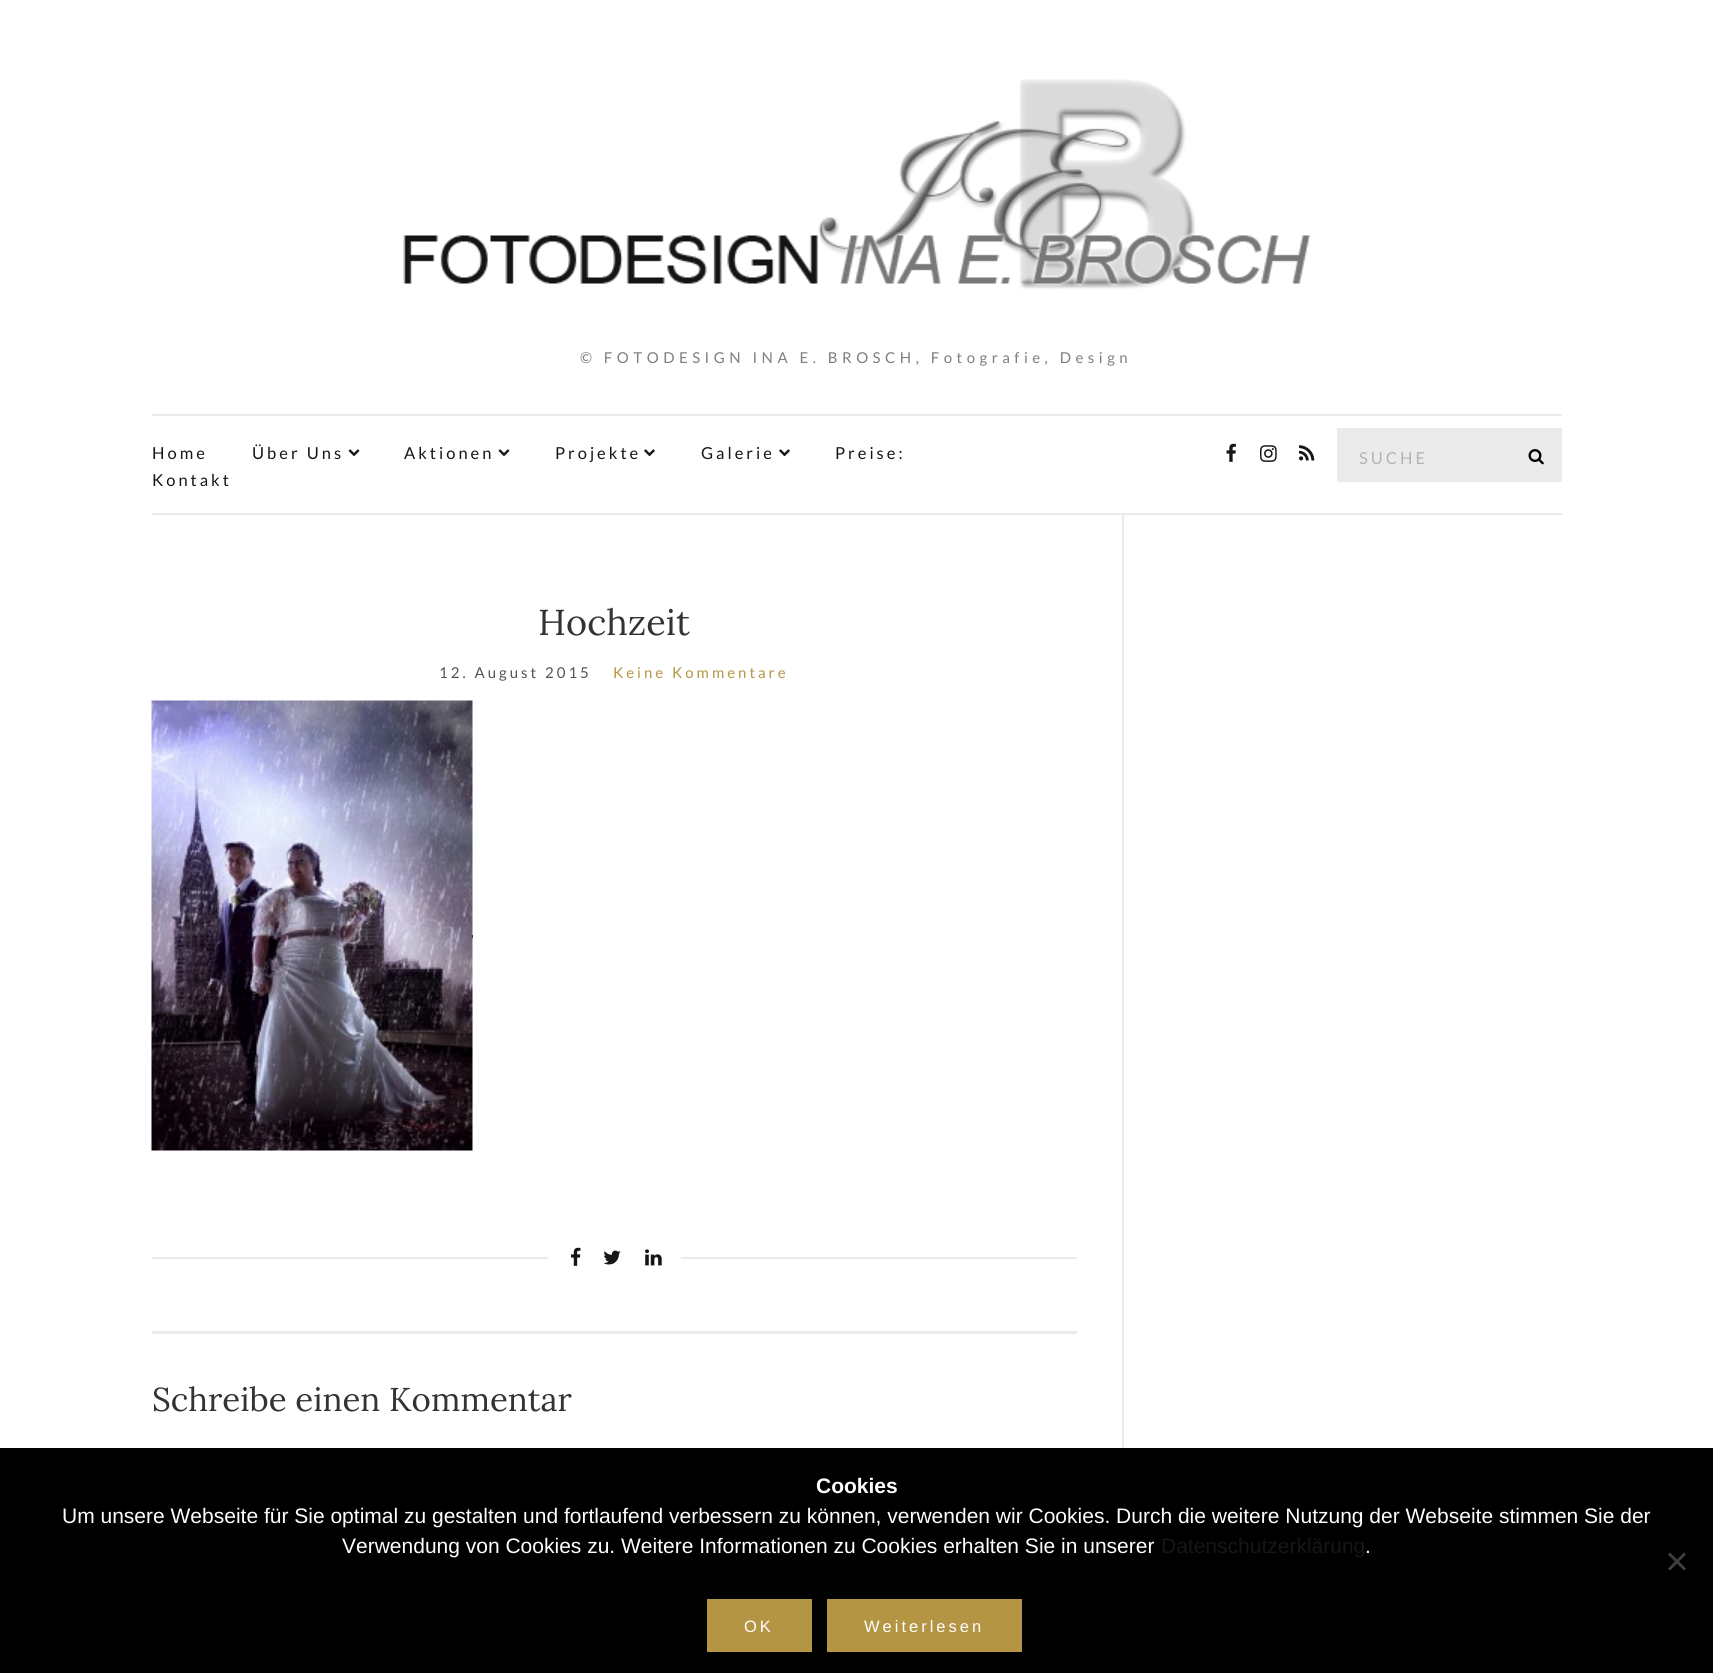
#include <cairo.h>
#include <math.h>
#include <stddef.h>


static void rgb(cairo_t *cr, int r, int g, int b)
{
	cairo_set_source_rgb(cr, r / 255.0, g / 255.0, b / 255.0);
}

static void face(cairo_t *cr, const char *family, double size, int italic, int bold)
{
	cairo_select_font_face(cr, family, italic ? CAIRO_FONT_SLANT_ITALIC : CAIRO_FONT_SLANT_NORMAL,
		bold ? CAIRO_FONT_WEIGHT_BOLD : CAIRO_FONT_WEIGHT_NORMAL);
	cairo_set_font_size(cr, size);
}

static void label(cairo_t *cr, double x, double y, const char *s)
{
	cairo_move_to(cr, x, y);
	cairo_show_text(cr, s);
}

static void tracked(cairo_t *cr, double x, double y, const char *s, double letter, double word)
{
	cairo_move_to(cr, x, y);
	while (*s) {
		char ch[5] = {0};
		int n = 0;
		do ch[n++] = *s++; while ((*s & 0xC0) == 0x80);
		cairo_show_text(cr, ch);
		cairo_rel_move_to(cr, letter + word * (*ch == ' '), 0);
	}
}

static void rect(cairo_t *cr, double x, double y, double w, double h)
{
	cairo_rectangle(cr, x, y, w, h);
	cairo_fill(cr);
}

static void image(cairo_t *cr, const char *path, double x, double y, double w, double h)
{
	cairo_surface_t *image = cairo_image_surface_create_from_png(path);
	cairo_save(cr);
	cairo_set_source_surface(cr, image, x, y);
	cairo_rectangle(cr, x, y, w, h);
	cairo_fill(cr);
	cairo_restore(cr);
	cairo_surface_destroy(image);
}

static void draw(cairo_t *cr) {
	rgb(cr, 255, 255, 255);
	cairo_paint(cr);
	image(cr, "image0.png", 403, 79, 907, 211);
	face(cr, "Lato", 15, 0, 0);
	rgb(cr, 126, 126, 126);
	tracked(cr, 580, 363, "© FOTODESIGN INA E. BROSCH, Fotografie, Design", 4.5, 0);
	rgb(cr, 235, 235, 235);
	rect(cr, 152, 414, 1410, 2);
	rect(cr, 152, 513, 1410, 2);
	face(cr, "Lato", 16.5, 0, 0);
	rgb(cr, 22, 22, 22);
	tracked(cr, 152, 459, "Home", 3, 0);
	tracked(cr, 252, 459, "Über Uns", 3, 0);
	image(cr, "image1.png", 348, 449, 12, 8);
	tracked(cr, 404, 459, "Aktionen", 3, 0);
	image(cr, "image1.png", 498, 449, 12, 8);
	tracked(cr, 555, 459, "Projekte", 3, 0);
	image(cr, "image2.png", 644, 449, 11, 8);
	tracked(cr, 701, 459, "Galerie", 3, 0);
	image(cr, "image2.png", 779, 449, 11, 8);
	tracked(cr, 835, 459, "Preise:", 3, 0);
	tracked(cr, 152, 486, "Kontakt", 3, 0);
	image(cr, "image3.png", 1226, 443, 10, 19);
	image(cr, "image4.png", 1260, 445, 17, 17);
	image(cr, "image5.png", 1299, 445, 16, 16);
	rgb(cr, 235, 235, 235);
	rect(cr, 1337, 428, 225, 54);
	rgb(cr, 180, 180, 180);
	tracked(cr, 1359, 464, "SUCHE", 3, 0);
	image(cr, "image6.png", 1528, 449, 16, 16);
	face(cr, "Lora", 36, 0, 0);
	rgb(cr, 51, 51, 51);
	label(cr, 538, 635, "Hochzeit");
	face(cr, "Lato", 15, 0, 0);
	rgb(cr, 84, 84, 84);
	tracked(cr, 439, 678, "12. August 2015", 3, 0);
	rgb(cr, 180, 149, 67);
	tracked(cr, 613, 678, "Keine Kommentare", 3, 0);
	rgb(cr, 17, 17, 17);
	rect(cr, 472, 935, 1, 3);
	image(cr, "image7.png", 151, 700, 322, 451);
	rgb(cr, 235, 235, 235);
	rect(cr, 152, 1257, 925, 2);
	rgb(cr, 255, 255, 255);
	rect(cr, 548, 1257, 133, 2);
	image(cr, "image8.png", 571, 1247, 10, 19);
	image(cr, "image9.png", 603, 1250, 18, 15);
	image(cr, "image10.png", 645, 1249, 17, 17);
	rgb(cr, 235, 235, 235);
	rect(cr, 152, 1331, 925, 3);
	face(cr, "Lora", 33, 0, 0);
	rgb(cr, 51, 51, 51);
	label(cr, 152, 1411, "Schreibe einen Kommentar");
	rgb(cr, 235, 235, 235);
	rect(cr, 1122, 515, 2, 933);
	rgb(cr, 0, 0, 0);
	rect(cr, 0, 1448, 1713, 225);
	face(cr, "Liberation Sans", 21, 0, 1);
	rgb(cr, 255, 255, 255);
	label(cr, 816, 1493, "Cookies");
	face(cr, "Liberation Sans", 21, 0, 0);
	label(cr, 62, 1523, "Um unsere Webseite für Sie optimal zu gestalten und fortlaufend verbessern zu können, verwenden wir Cookies. Durch die weitere Nutzung der Webseite stimmen Sie der");
	label(cr, 342, 1553, "Verwendung von Cookies zu. Weitere Informationen zu Cookies erhalten Sie in unserer");
	rgb(cr, 22, 22, 22);
	label(cr, 1161, 1553, "Datenschutzerklärung");
	rgb(cr, 255, 255, 255);
	label(cr, 1365, 1553, ".");
	rgb(cr, 64, 64, 64);
	cairo_new_path(cr);
	cairo_move_to(cr, 1684, 1552.5);
	cairo_line_to(cr, 1686, 1554.5);
	cairo_line_to(cr, 1670, 1570.5);
	cairo_line_to(cr, 1668, 1568.5);
	cairo_close_path(cr);
	cairo_fill(cr);
	cairo_new_path(cr);
	cairo_move_to(cr, 1668, 1554.5);
	cairo_line_to(cr, 1670, 1552.5);
	cairo_line_to(cr, 1686, 1568.5);
	cairo_line_to(cr, 1684, 1570.5);
	cairo_close_path(cr);
	cairo_fill(cr);
	rgb(cr, 180, 149, 67);
	rect(cr, 707, 1599, 105, 53);
	face(cr, "Liberation Sans", 16.5, 0, 0);
	rgb(cr, 255, 255, 255);
	tracked(cr, 744, 1632, "OK", 3, 0);
	rgb(cr, 180, 149, 67);
	rect(cr, 827, 1599, 195, 53);
	rgb(cr, 255, 255, 255);
	tracked(cr, 864, 1632, "Weiterlesen", 3, 0);
}

int main(void) {
	cairo_surface_t *surface = cairo_image_surface_create(CAIRO_FORMAT_RGB24, 1713, 1673);
	cairo_t *cr = cairo_create(surface);
	cairo_font_options_t *options = cairo_font_options_create();
	cairo_font_options_set_hint_metrics(options, CAIRO_HINT_METRICS_OFF);
	cairo_font_options_set_hint_style(options, CAIRO_HINT_STYLE_NONE);
	cairo_set_font_options(cr, options);
	cairo_set_miter_limit(cr, 4);
	draw(cr);
	cairo_surface_write_to_png(surface, "render.png");
	cairo_font_options_destroy(options);
	cairo_destroy(cr);
	cairo_surface_destroy(surface);
	return 0;
}
